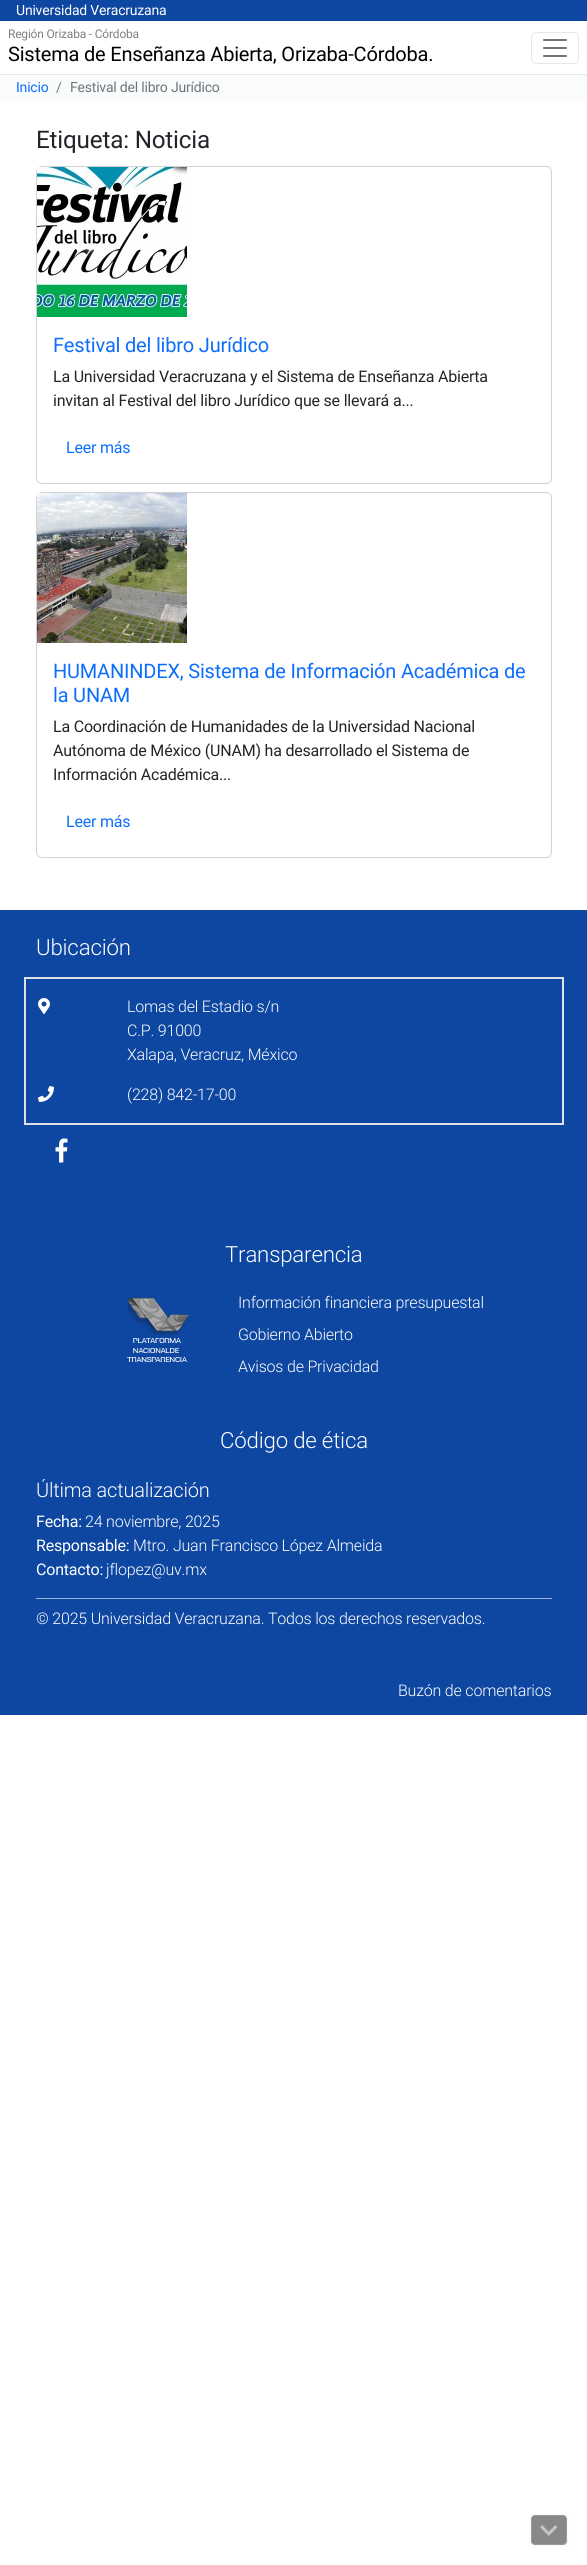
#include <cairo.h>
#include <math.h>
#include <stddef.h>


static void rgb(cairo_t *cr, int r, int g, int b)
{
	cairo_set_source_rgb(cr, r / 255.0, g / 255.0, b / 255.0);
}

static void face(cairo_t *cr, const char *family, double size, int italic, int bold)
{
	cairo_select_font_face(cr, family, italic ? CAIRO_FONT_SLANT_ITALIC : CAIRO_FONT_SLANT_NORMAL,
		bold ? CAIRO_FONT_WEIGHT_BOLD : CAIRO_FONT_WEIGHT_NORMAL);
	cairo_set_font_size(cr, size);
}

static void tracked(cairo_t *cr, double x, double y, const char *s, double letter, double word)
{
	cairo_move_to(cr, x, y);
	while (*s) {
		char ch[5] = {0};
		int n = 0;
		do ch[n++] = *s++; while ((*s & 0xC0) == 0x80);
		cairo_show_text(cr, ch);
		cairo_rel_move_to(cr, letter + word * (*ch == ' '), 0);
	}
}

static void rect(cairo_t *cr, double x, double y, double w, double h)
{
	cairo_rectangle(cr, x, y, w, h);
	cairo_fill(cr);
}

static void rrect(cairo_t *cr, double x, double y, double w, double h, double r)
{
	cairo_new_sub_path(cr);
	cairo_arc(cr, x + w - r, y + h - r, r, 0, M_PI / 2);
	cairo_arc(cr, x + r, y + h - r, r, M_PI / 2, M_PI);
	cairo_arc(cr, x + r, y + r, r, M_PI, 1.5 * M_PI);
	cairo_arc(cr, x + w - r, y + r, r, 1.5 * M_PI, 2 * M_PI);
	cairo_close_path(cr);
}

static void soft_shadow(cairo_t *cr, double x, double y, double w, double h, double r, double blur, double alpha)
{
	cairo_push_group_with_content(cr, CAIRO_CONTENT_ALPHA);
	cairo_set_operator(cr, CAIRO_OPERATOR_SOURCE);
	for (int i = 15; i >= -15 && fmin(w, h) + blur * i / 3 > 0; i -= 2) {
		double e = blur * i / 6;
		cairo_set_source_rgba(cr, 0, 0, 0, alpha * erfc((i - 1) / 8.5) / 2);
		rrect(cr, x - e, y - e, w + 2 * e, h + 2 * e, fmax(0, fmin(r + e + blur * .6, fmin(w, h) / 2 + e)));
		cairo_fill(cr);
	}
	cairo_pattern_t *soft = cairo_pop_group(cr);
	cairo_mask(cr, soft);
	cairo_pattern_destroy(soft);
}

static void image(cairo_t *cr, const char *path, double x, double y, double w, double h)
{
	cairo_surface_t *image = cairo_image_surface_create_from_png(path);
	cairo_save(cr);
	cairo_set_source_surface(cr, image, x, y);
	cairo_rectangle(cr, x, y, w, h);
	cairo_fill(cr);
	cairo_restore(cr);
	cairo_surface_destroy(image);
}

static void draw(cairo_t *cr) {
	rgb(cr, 255, 255, 255);
	cairo_paint(cr);
	rgb(cr, 250, 251, 251);
	rect(cr, 0, 74, 587, 27);
	cairo_save(cr);
	cairo_rectangle(cr, 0, 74, 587, 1);
	cairo_clip(cr);
	rgb(cr, 0, 0, 0);
	soft_shadow(cr, 0, 1, 587, 74, 0, 0.5, 0.1);
	cairo_restore(cr);
	rgb(cr, 14, 71, 161);
	rect(cr, 0, 0, 587, 21);
	face(cr, "Roboto", 14, 0, 0);
	rgb(cr, 255, 255, 255);
	tracked(cr, 16, 15, "Universidad Veracruzana", -0.2, 0);
	face(cr, "Roboto", 12, 0, 0);
	rgb(cr, 128, 128, 128);
	tracked(cr, 8, 38, "Región Orizaba - Córdoba", -0.2, 0);
	face(cr, "Roboto", 20, 0, 0);
	rgb(cr, 0, 0, 0);
	tracked(cr, 8, 61, "Sistema de Enseñanza Abierta, Orizaba-Córdoba.", -0.2, 0);
	rrect(cr, 531.5, 32.5, 47, 31, 5.5);
	rgb(cr, 230, 230, 230);
	cairo_set_line_width(cr, 1);
	cairo_stroke(cr);
	image(cr, "image0.png", 543, 39, 24, 18);
	face(cr, "Roboto", 14, 0, 0);
	rgb(cr, 13, 110, 253);
	tracked(cr, 16, 92, "Inicio", -0.2, 0);
	rgb(cr, 108, 117, 125);
	tracked(cr, 56, 92, "/", -0.2, 0);
	tracked(cr, 70, 92, "Festival del libro Jurídico", -0.2, 0);
	face(cr, "Roboto", 24.25, 0, 0);
	rgb(cr, 33, 37, 41);
	tracked(cr, 36, 148, "Etiqueta: Noticia", -0.2, 0);
	rrect(cr, 36.5, 166.5, 515, 317, 5.5);
	rgb(cr, 210, 210, 210);
	cairo_stroke(cr);
	image(cr, "image1.png", 37, 167, 150, 150);
	face(cr, "Roboto", 20, 0, 0);
	rgb(cr, 13, 110, 253);
	tracked(cr, 53, 352, "Festival del libro Jurídico", -0.2, 0);
	face(cr, "Roboto", 16, 0, 0);
	rgb(cr, 33, 37, 41);
	tracked(cr, 53, 382, "La Universidad Veracruzana y el Sistema de Enseñanza Abierta", -0.2, 0);
	tracked(cr, 53, 406, "invitan al Festival del libro Jurídico que se llevará a...", -0.2, 0);
	rgb(cr, 13, 110, 253);
	tracked(cr, 66, 453, "Leer más", -0.2, 0);
	rrect(cr, 36.5, 492.5, 515, 365, 5.5);
	rgb(cr, 210, 210, 210);
	cairo_stroke(cr);
	image(cr, "image2.png", 37, 493, 150, 150);
	face(cr, "Roboto", 20, 0, 0);
	rgb(cr, 13, 110, 253);
	tracked(cr, 53, 678, "HUMANINDEX, Sistema de Información Académica de", -0.2, 0);
	tracked(cr, 53, 702, "la UNAM", -0.2, 0);
	face(cr, "Roboto", 16, 0, 0);
	rgb(cr, 33, 37, 41);
	tracked(cr, 53, 732, "La Coordinación de Humanidades de la Universidad Nacional", -0.2, 0);
	tracked(cr, 53, 756, "Autónoma de México (UNAM) ha desarrollado el Sistema de", -0.2, 0);
	tracked(cr, 53, 780, "Información Académica...", -0.2, 0);
	rgb(cr, 13, 110, 253);
	tracked(cr, 66, 827, "Leer más", -0.2, 0);
	rgb(cr, 14, 71, 161);
	rect(cr, 0, 910, 587, 805);
	face(cr, "Roboto Light", 22.25, 0, 0);
	rgb(cr, 255, 255, 255);
	tracked(cr, 36, 955, "Ubicación", -0.2, 0);
	cairo_rectangle(cr, 25, 978, 538, 146);
	rgb(cr, 222, 226, 230);
	cairo_set_line_width(cr, 2);
	cairo_stroke(cr);
	image(cr, "image3.png", 38, 998, 12, 16);
	face(cr, "Roboto Light", 16, 0, 0);
	rgb(cr, 255, 255, 255);
	tracked(cr, 127, 1012, "Lomas del Estadio s/n", -0.2, 0);
	tracked(cr, 127, 1036, "C.P. 91000", -0.2, 0);
	tracked(cr, 127, 1060, "Xalapa, Veracruz, México", -0.2, 0);
	image(cr, "image4.png", 38, 1086, 16, 16);
	tracked(cr, 127, 1100, "(228) 842-17-00", -0.2, 0);
	image(cr, "image5.png", 55, 1138, 13, 25);
	face(cr, "Roboto Light", 22.25, 0, 0);
	tracked(cr, 225, 1262, "Transparencia", -0.2, 0);
	image(cr, "image6.png", 127, 1297, 63, 65);
	face(cr, "Roboto Light", 16, 0, 0);
	tracked(cr, 238, 1308, "Información financiera presupuestal", -0.2, 0);
	tracked(cr, 238, 1340, "Gobierno Abierto", -0.2, 0);
	tracked(cr, 238, 1372, "Avisos de Privacidad", -0.2, 0);
	face(cr, "Roboto Light", 22.25, 0, 0);
	tracked(cr, 220, 1448, "Código de ética", -0.2, 0);
	face(cr, "Roboto Light", 20, 0, 0);
	tracked(cr, 36, 1497, "Última actualización", -0.2, 0);
	face(cr, "Roboto", 16, 0, 0);
	tracked(cr, 36, 1527, "Fecha:", -0.2, 0);
	face(cr, "Roboto Light", 16, 0, 0);
	tracked(cr, 85, 1527, "24 noviembre, 2025", -0.2, 0);
	face(cr, "Roboto", 16, 0, 0);
	tracked(cr, 36, 1551, "Responsable:", -0.2, 0);
	face(cr, "Roboto Light", 16, 0, 0);
	tracked(cr, 133, 1551, "Mtro. Juan Francisco López Almeida", -0.2, 0);
	face(cr, "Roboto", 16, 0, 0);
	tracked(cr, 36, 1575, "Contacto:", -0.2, 0);
	face(cr, "Roboto Light", 16, 0, 0);
	tracked(cr, 106, 1575, "jflopez@uv.mx", -0.2, 0);
	rgb(cr, 159, 181, 217);
	rect(cr, 36, 1598, 516, 1);
	rgb(cr, 255, 255, 255);
	tracked(cr, 36, 1624, "© 2025 Universidad Veracruzana. Todos los derechos reservados.", -0.2, 0);
	tracked(cr, 398, 1696, "Buzón de comentarios", -0.2, 0);
	rgb(cr, 128, 128, 128);
	soft_shadow(cr, 531, 2515, 36, 30, 4, 2, 0.1);
	rgb(cr, 136, 136, 136);
	rrect(cr, 531.5, 2515.5, 35, 29, 3.5);
	cairo_fill_preserve(cr);
	rgb(cr, 153, 153, 153);
	cairo_set_line_width(cr, 1);
	cairo_stroke(cr);
	image(cr, "image7.png", 540, 2525, 18, 11);
}

int main(void) {
	cairo_surface_t *surface = cairo_image_surface_create(CAIRO_FORMAT_RGB24, 587, 2565);
	cairo_t *cr = cairo_create(surface);
	cairo_font_options_t *options = cairo_font_options_create();
	cairo_font_options_set_hint_metrics(options, CAIRO_HINT_METRICS_OFF);
	cairo_font_options_set_hint_style(options, CAIRO_HINT_STYLE_NONE);
	cairo_set_font_options(cr, options);
	cairo_set_miter_limit(cr, 4);
	draw(cr);
	cairo_surface_write_to_png(surface, "render.png");
	cairo_font_options_destroy(options);
	cairo_destroy(cr);
	cairo_surface_destroy(surface);
	return 0;
}
